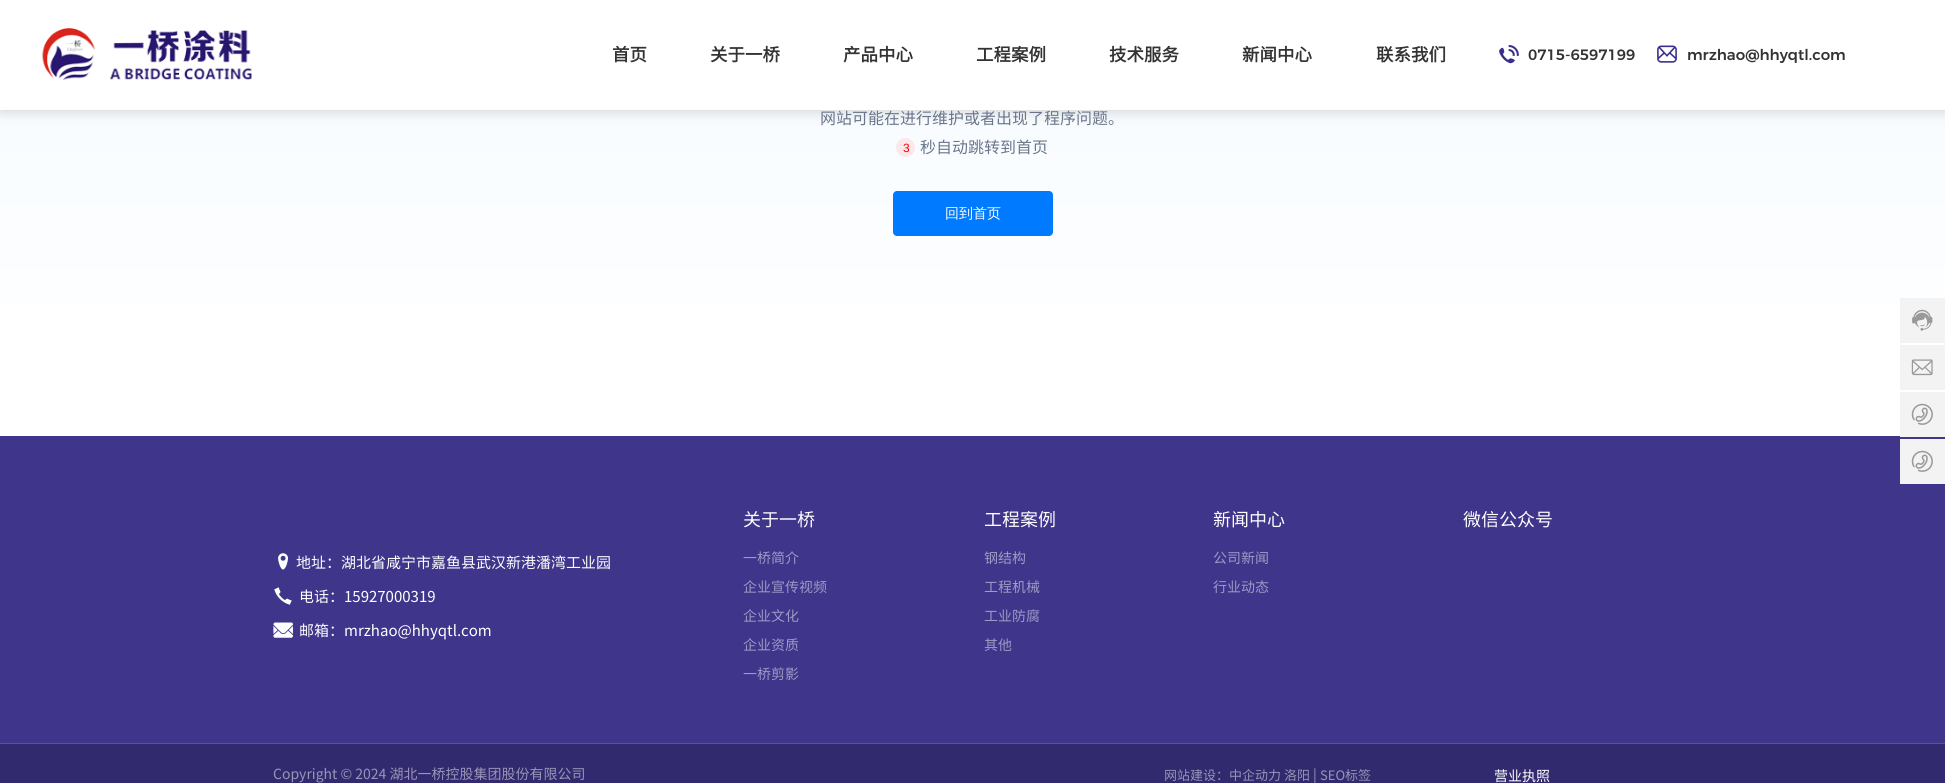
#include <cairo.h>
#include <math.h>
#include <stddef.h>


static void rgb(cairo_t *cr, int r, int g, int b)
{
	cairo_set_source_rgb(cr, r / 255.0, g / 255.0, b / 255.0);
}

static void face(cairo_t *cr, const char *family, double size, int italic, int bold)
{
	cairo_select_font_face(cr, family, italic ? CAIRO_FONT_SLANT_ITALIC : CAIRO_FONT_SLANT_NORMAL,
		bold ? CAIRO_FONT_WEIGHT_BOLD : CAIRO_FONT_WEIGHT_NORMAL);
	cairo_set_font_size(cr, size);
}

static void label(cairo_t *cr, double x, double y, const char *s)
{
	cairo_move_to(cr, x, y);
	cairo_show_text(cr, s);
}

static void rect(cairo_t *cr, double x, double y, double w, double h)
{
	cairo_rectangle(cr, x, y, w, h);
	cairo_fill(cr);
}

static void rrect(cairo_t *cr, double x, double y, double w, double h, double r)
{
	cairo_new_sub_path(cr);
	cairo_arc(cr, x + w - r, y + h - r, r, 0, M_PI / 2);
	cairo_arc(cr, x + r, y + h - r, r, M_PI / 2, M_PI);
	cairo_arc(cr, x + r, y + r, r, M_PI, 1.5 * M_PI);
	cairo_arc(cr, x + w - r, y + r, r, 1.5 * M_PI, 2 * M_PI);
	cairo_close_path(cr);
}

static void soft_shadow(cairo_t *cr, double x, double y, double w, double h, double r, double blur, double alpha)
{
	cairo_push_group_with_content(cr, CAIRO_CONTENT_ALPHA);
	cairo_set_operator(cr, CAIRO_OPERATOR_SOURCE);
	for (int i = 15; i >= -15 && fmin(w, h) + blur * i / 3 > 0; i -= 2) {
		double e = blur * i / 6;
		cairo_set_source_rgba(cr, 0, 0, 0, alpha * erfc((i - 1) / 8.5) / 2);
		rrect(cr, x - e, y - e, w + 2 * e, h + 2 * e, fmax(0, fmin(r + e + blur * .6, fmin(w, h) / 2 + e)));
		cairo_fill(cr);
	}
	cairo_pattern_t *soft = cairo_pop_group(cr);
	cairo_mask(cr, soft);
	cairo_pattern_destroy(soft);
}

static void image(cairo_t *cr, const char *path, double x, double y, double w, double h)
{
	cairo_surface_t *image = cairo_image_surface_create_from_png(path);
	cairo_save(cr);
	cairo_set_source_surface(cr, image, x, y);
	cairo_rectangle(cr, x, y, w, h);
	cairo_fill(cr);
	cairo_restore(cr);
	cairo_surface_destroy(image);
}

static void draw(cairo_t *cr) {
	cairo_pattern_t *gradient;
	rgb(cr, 255, 255, 255);
	cairo_paint(cr);
	gradient = cairo_pattern_create_linear(973, -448, 973, 436);
	cairo_pattern_add_color_stop_rgba(gradient, 0, 0.933, 0.969, 1, 1);
	cairo_pattern_add_color_stop_rgba(gradient, 1, 1, 1, 1, 1);
	cairo_set_source(cr, gradient);
	cairo_pattern_destroy(gradient);
	rect(cr, 0, 110, 1945, 196);
	rgb(cr, 0, 0, 0);
	soft_shadow(cr, 0, 0, 1945, 110, 0, 7.5, 0.2);
	rgb(cr, 255, 255, 255);
	rect(cr, 0, 0, 1945, 110);
	image(cr, "image0.png", 42, 28, 210, 53);
	face(cr, "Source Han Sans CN", 17.5, 0, 1);
	rgb(cr, 51, 51, 51);
	label(cr, 612, 61, "首页");
	label(cr, 710, 61, "关于一桥");
	label(cr, 843, 61, "产品中心");
	label(cr, 976, 61, "工程案例");
	label(cr, 1109, 61, "技术服务");
	label(cr, 1242, 61, "新闻中心");
	label(cr, 1376, 61, "联系我们");
	image(cr, "image1.png", 1499, 45, 20, 19);
	face(cr, "Montserrat Medium", 15, 0, 0);
	label(cr, 1528, 60, "0715-6597199");
	image(cr, "image2.png", 1657, 45, 20, 18);
	label(cr, 1687, 60, "mrzhao@hhyqtl.com");
	face(cr, "Source Han Sans CN", 16, 0, 0);
	rgb(cr, 105, 117, 139);
	label(cr, 820, 124, "网站可能在进行维护或者出现了程序问题。");
	rgb(cr, 250, 232, 235);
	cairo_new_path(cr);
	cairo_arc(cr, 905.5, 147.5, 9.5, 0, 2 * M_PI);
	cairo_fill(cr);
	face(cr, "Liberation Sans", 12, 0, 0);
	rgb(cr, 255, 0, 0);
	label(cr, 903, 152, "3");
	face(cr, "Source Han Sans CN", 16, 0, 0);
	rgb(cr, 105, 117, 139);
	label(cr, 920, 153, "秒自动跳转到首页");
	rgb(cr, 0, 123, 255);
	rrect(cr, 893, 191, 160, 45, 4);
	cairo_fill(cr);
	face(cr, "WenQuanYi Zen Hei Medium", 14, 0, 0);
	rgb(cr, 255, 255, 255);
	label(cr, 945, 218, "回到首页");
	rgb(cr, 63, 53, 138);
	rect(cr, 0, 436, 1945, 307);
	face(cr, "Source Han Sans CN", 18, 0, 0);
	rgb(cr, 255, 255, 255);
	label(cr, 743, 526, "关于一桥");
	face(cr, "Source Han Sans CN", 14, 0, 0);
	rgb(cr, 159, 154, 197);
	label(cr, 743, 563, "一桥简介");
	label(cr, 743, 592, "企业宣传视频");
	label(cr, 743, 621, "企业文化");
	label(cr, 743, 650, "企业资质");
	label(cr, 743, 679, "一桥剪影");
	face(cr, "Source Han Sans CN", 18, 0, 0);
	rgb(cr, 255, 255, 255);
	label(cr, 984, 526, "工程案例");
	face(cr, "Source Han Sans CN", 14, 0, 0);
	rgb(cr, 159, 154, 197);
	label(cr, 984, 563, "钢结构");
	label(cr, 984, 592, "工程机械");
	label(cr, 984, 621, "工业防腐");
	label(cr, 984, 650, "其他");
	face(cr, "Source Han Sans CN", 18, 0, 0);
	rgb(cr, 255, 255, 255);
	label(cr, 1213, 526, "新闻中心");
	face(cr, "Source Han Sans CN", 14, 0, 0);
	rgb(cr, 159, 154, 197);
	label(cr, 1213, 563, "公司新闻");
	label(cr, 1213, 592, "行业动态");
	face(cr, "Source Han Sans CN", 18, 0, 0);
	rgb(cr, 255, 255, 255);
	label(cr, 1463, 526, "微信公众号");
	image(cr, "image3.png", 278, 553, 10, 17);
	face(cr, "Source Han Sans CN", 15, 0, 0);
	label(cr, 296, 568, "地址：湖北省咸宁市嘉鱼县武汉新港潘湾工业园");
	image(cr, "image4.png", 274, 587, 18, 18);
	label(cr, 299, 602, "电话：15927000319");
	image(cr, "image5.png", 273, 622, 20, 16);
	label(cr, 299, 636, "邮箱：mrzhao@hhyqtl.com");
	rgb(cr, 50, 42, 110);
	rect(cr, 0, 744, 1945, 39);
	rgb(cr, 91, 85, 139);
	rect(cr, 0, 743, 1945, 1);
	face(cr, "Source Han Sans CN", 14, 0, 0);
	rgb(cr, 153, 149, 183);
	label(cr, 273, 779, "Copyright © 2024 湖北一桥控股集团股份有限公司");
	face(cr, "Source Han Sans CN", 13, 0, 0);
	label(cr, 1164, 780, "网站建设：中企动力 洛阳");
	face(cr, "Source Han Sans CN", 14, 0, 0);
	label(cr, 1313, 780, "|");
	face(cr, "Source Han Sans CN", 13, 0, 0);
	label(cr, 1320, 780, "SEO标签");
	face(cr, "Source Han Sans CN", 14, 0, 0);
	rgb(cr, 255, 255, 255);
	label(cr, 1494, 781, "营业执照");
	rgb(cr, 243, 243, 243);
	rect(cr, 1900, 298, 45, 45);
	image(cr, "image6.png", 1912, 309, 21, 22);
	rect(cr, 1900, 345, 45, 45);
	image(cr, "image7.png", 1911, 359, 22, 17);
	rect(cr, 1900, 392, 45, 45);
	image(cr, "image8.png", 1911, 403, 22, 22);
	rect(cr, 1900, 439, 45, 45);
	image(cr, "image8.png", 1911, 450, 22, 22);
}

int main(void) {
	cairo_surface_t *surface = cairo_image_surface_create(CAIRO_FORMAT_RGB24, 1945, 783);
	cairo_t *cr = cairo_create(surface);
	cairo_font_options_t *options = cairo_font_options_create();
	cairo_font_options_set_hint_metrics(options, CAIRO_HINT_METRICS_OFF);
	cairo_font_options_set_hint_style(options, CAIRO_HINT_STYLE_NONE);
	cairo_set_font_options(cr, options);
	cairo_set_miter_limit(cr, 4);
	draw(cr);
	cairo_surface_write_to_png(surface, "render.png");
	cairo_font_options_destroy(options);
	cairo_destroy(cr);
	cairo_surface_destroy(surface);
	return 0;
}
